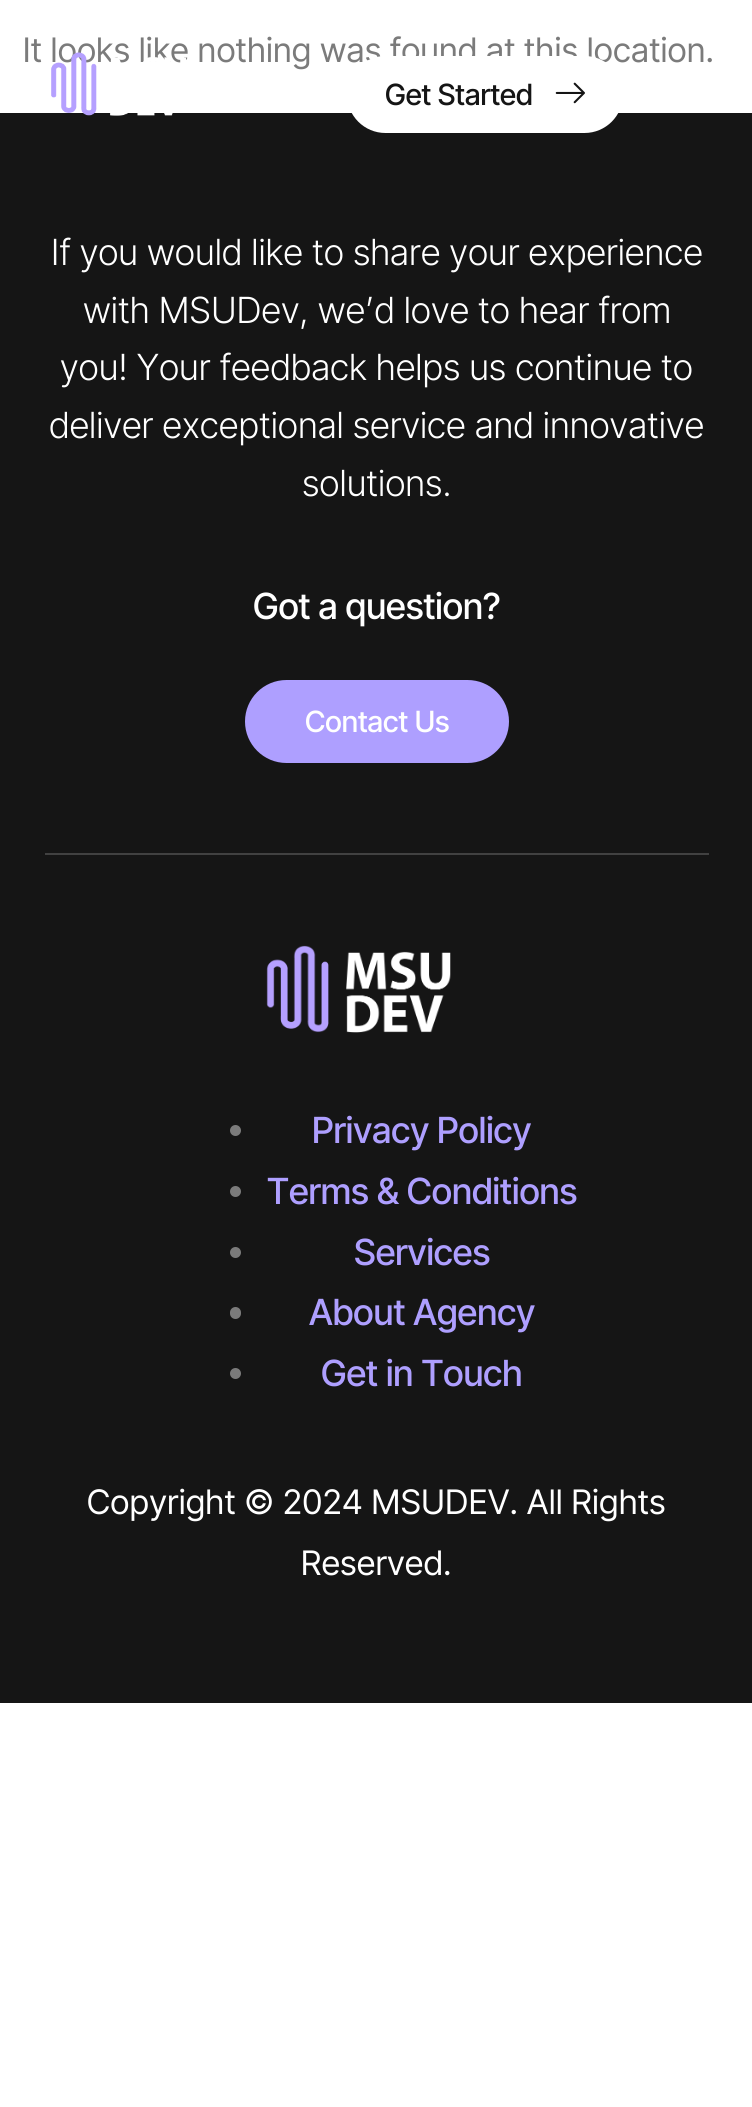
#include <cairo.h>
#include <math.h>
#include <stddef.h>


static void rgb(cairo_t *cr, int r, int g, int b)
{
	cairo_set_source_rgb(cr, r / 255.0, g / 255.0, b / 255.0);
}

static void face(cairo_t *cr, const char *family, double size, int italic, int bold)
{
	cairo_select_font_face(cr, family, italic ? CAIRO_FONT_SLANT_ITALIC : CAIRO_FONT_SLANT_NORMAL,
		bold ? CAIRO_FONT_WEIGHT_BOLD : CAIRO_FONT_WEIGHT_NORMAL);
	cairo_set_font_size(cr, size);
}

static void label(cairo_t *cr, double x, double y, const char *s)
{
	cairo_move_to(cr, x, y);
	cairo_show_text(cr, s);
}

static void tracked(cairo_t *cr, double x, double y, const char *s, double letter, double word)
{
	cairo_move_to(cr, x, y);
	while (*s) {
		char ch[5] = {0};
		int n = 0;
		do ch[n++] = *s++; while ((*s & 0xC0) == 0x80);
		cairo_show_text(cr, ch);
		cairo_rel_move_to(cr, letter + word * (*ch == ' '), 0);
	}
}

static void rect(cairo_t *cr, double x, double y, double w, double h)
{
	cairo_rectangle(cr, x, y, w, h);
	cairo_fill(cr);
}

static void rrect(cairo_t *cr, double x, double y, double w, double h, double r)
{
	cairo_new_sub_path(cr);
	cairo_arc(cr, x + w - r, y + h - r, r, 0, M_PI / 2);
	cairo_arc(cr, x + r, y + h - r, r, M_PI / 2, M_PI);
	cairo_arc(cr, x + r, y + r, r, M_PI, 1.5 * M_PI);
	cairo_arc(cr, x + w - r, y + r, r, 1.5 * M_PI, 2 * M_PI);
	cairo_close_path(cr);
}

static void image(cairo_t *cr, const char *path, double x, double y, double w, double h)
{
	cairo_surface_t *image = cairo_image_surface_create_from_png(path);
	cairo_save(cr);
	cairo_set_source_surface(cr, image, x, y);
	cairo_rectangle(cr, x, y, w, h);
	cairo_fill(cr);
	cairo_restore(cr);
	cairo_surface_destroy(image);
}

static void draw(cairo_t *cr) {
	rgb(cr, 255, 255, 255);
	cairo_paint(cr);
	face(cr, "Inter Tight", 33.75, 0, 0);
	rgb(cr, 123, 123, 123);
	tracked(cr, 23, 62, "It looks like nothing was found at this location.", 0.65, 0);
	rgb(cr, 21, 21, 21);
	rect(cr, 0, 113, 752, 1590);
	image(cr, "image0.png", 51, 52, 135, 64);
	rgb(cr, 255, 255, 255);
	rrect(cr, 347, 56, 276, 77, 38.5);
	cairo_fill(cr);
	face(cr, "Inter Tight Medium", 29.25, 0, 0);
	rgb(cr, 21, 21, 21);
	label(cr, 385, 105, "Get Started");
	image(cr, "image1.png", 555, 82, 30, 22);
	rgb(cr, 65, 65, 65);
	rect(cr, 45, 853, 664, 2);
	face(cr, "Inter Tight Light", 36, 0, 0);
	rgb(cr, 255, 255, 255);
	label(cr, 51, 265, "If you would like to share your experience");
	label(cr, 83, 323, "with MSUDev, we’d love to hear from");
	label(cr, 60, 380, "you! Your feedback helps us continue to");
	label(cr, 49, 438, "deliver exceptional service and innovative");
	label(cr, 302, 496, "solutions.");
	face(cr, "Inter Tight Medium", 36, 0, 0);
	label(cr, 253, 619, "Got a question?");
	rgb(cr, 174, 159, 255);
	rrect(cr, 245, 680, 264, 83, 41.5);
	cairo_fill(cr);
	face(cr, "Inter Tight Medium", 29.25, 0, 0);
	rgb(cr, 255, 255, 255);
	label(cr, 305, 732, "Contact Us");
	image(cr, "image2.png", 266, 945, 185, 88);
	rgb(cr, 123, 123, 123);
	cairo_arc(cr, 235.5, 1130.5, 5.5, 0, 2 * M_PI);
	cairo_fill(cr);
	face(cr, "Inter Tight Medium", 36, 0, 0);
	rgb(cr, 174, 159, 255);
	label(cr, 312, 1143, "Privacy Policy");
	rgb(cr, 123, 123, 123);
	cairo_new_path(cr);
	cairo_arc(cr, 235.5, 1191.5, 5.5, 0, 2 * M_PI);
	cairo_fill(cr);
	rgb(cr, 174, 159, 255);
	label(cr, 267, 1204, "Terms & Conditions");
	rgb(cr, 123, 123, 123);
	cairo_new_path(cr);
	cairo_arc(cr, 235.5, 1252.5, 5.5, 0, 2 * M_PI);
	cairo_fill(cr);
	rgb(cr, 174, 159, 255);
	label(cr, 354, 1265, "Services");
	rgb(cr, 123, 123, 123);
	rrect(cr, 230, 1307, 11, 12, 5.5);
	cairo_fill(cr);
	rgb(cr, 174, 159, 255);
	label(cr, 309, 1325, "About Agency");
	rgb(cr, 123, 123, 123);
	cairo_new_path(cr);
	cairo_arc(cr, 235.5, 1373.5, 5.5, 0, 2 * M_PI);
	cairo_fill(cr);
	rgb(cr, 174, 159, 255);
	label(cr, 321, 1386, "Get in Touch");
	face(cr, "Inter Tight", 33.75, 0, 0);
	rgb(cr, 255, 255, 255);
	tracked(cr, 87, 1514, "Copyright © 2024 MSUDEV. All Rights", 0.65, 0);
	tracked(cr, 301, 1575, "Reserved.", 0.65, 0);
}

int main(void) {
	cairo_surface_t *surface = cairo_image_surface_create(CAIRO_FORMAT_RGB24, 752, 2107);
	cairo_t *cr = cairo_create(surface);
	cairo_font_options_t *options = cairo_font_options_create();
	cairo_font_options_set_hint_metrics(options, CAIRO_HINT_METRICS_OFF);
	cairo_font_options_set_hint_style(options, CAIRO_HINT_STYLE_NONE);
	cairo_set_font_options(cr, options);
	cairo_set_miter_limit(cr, 4);
	draw(cr);
	cairo_surface_write_to_png(surface, "render.png");
	cairo_font_options_destroy(options);
	cairo_destroy(cr);
	cairo_surface_destroy(surface);
	return 0;
}
